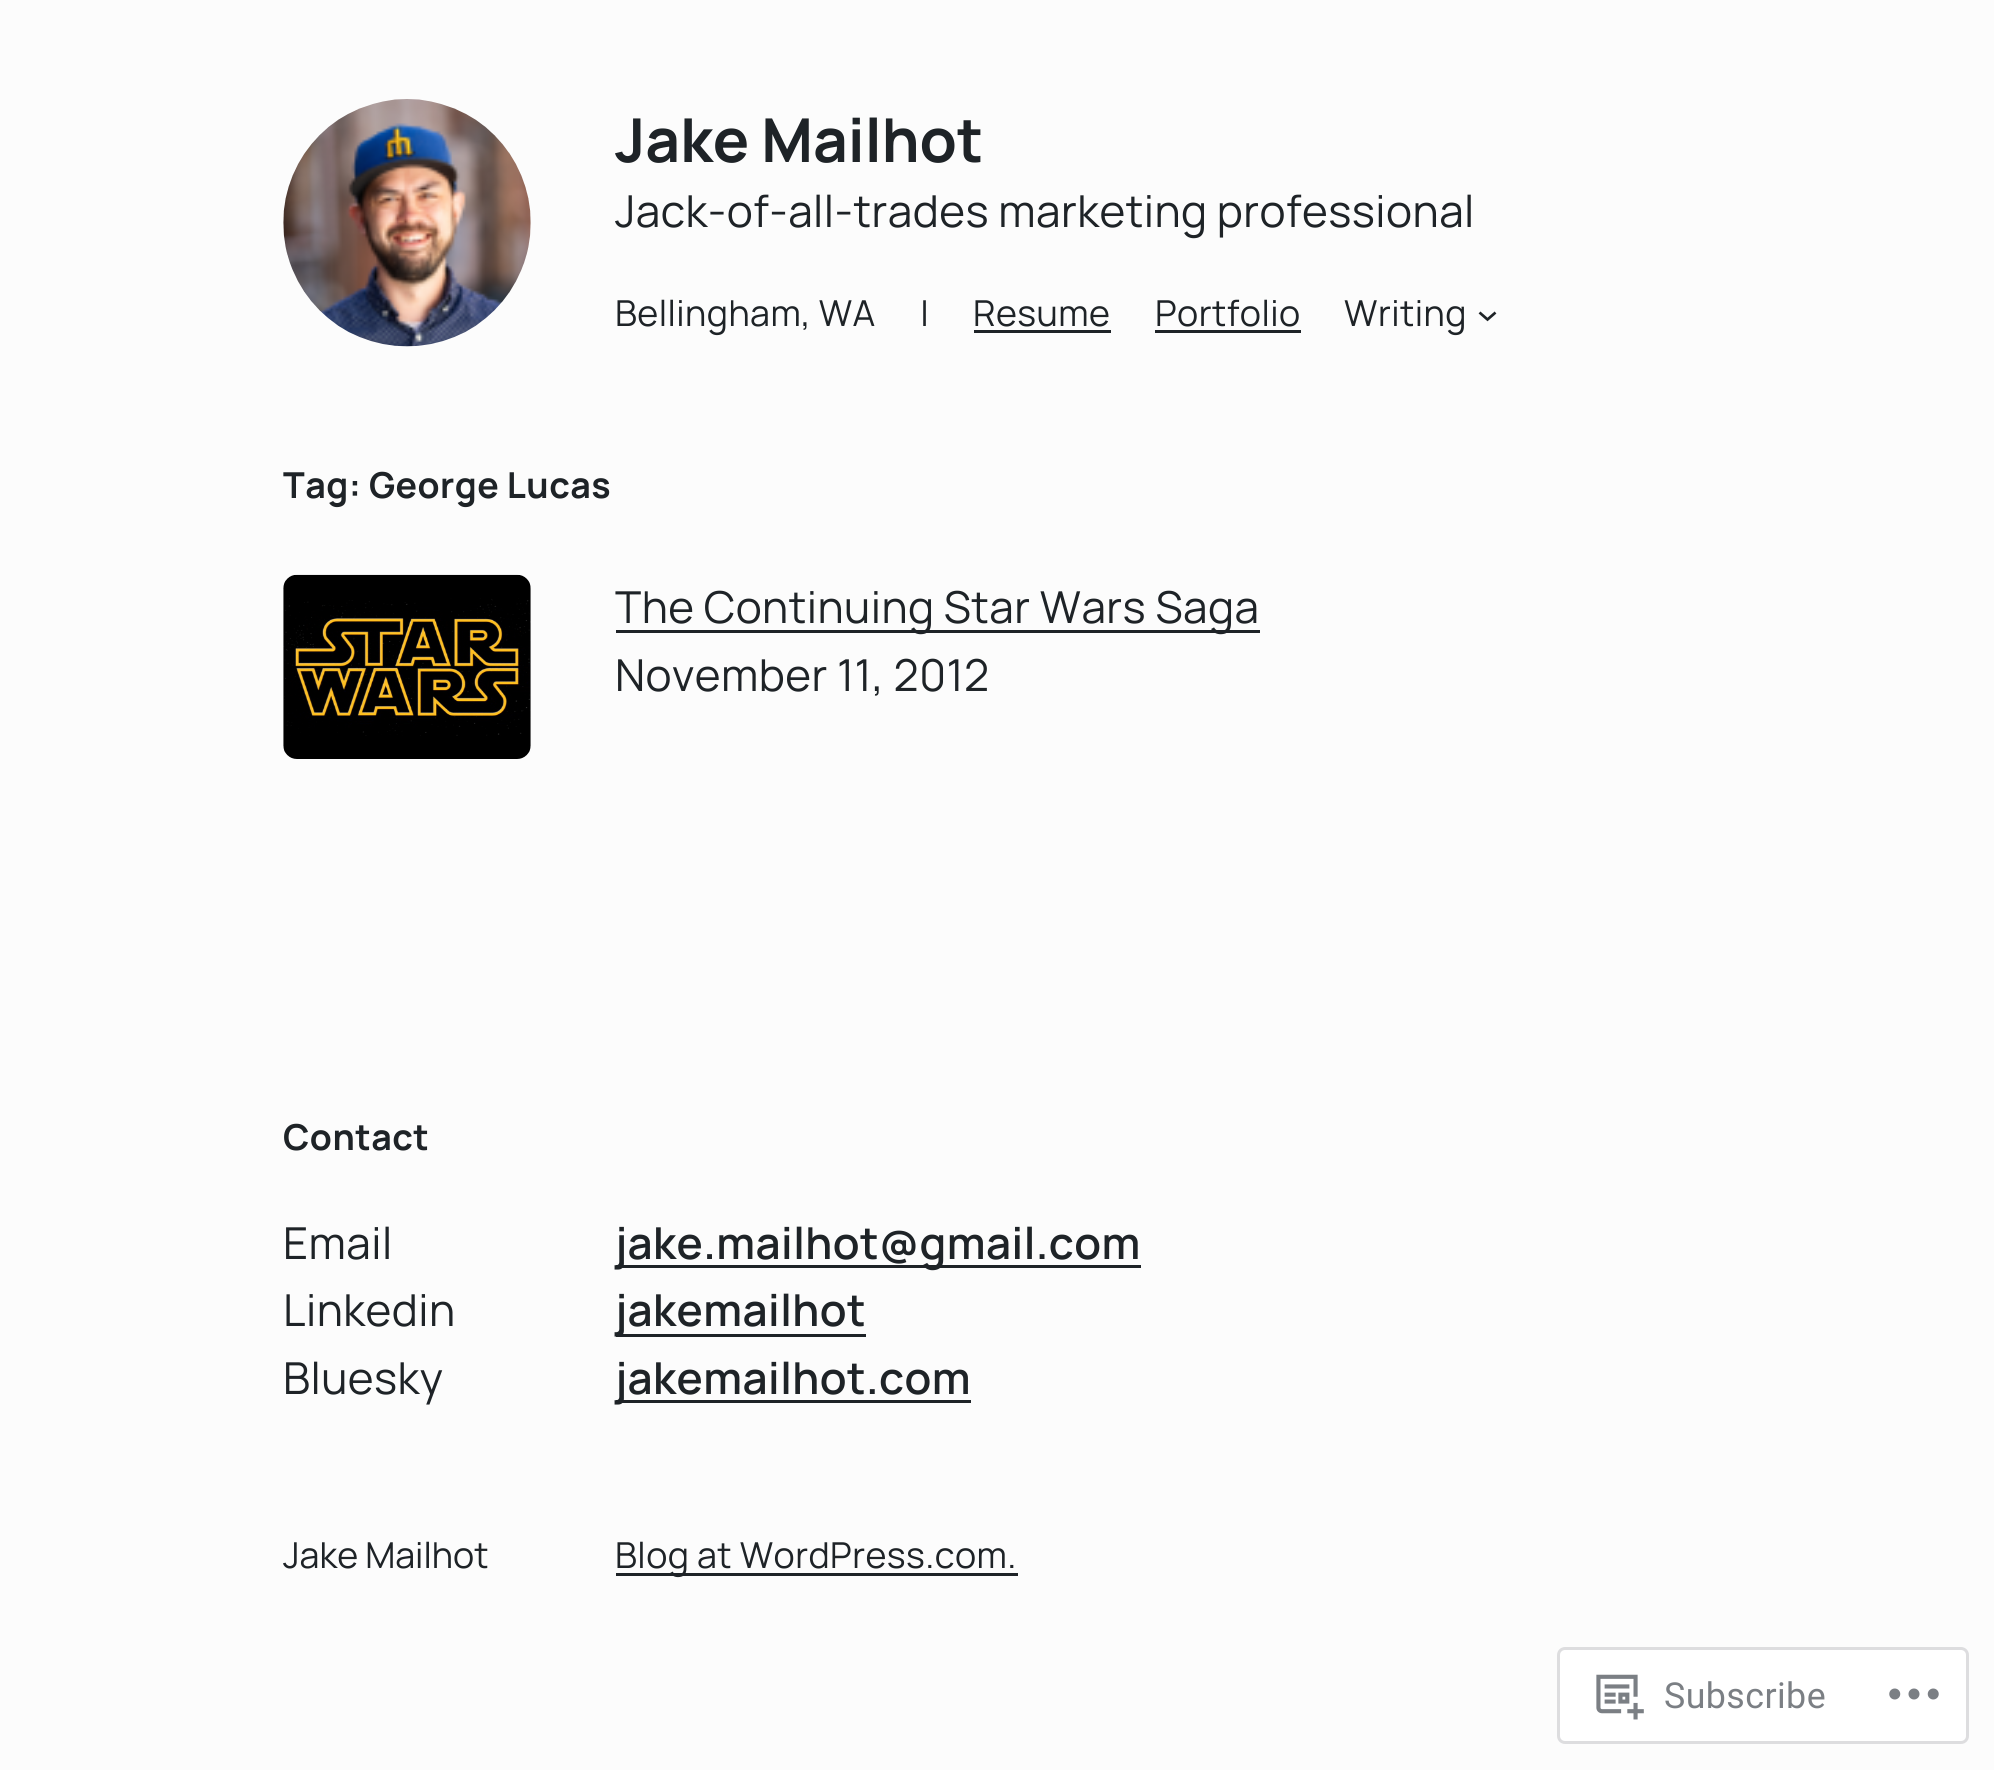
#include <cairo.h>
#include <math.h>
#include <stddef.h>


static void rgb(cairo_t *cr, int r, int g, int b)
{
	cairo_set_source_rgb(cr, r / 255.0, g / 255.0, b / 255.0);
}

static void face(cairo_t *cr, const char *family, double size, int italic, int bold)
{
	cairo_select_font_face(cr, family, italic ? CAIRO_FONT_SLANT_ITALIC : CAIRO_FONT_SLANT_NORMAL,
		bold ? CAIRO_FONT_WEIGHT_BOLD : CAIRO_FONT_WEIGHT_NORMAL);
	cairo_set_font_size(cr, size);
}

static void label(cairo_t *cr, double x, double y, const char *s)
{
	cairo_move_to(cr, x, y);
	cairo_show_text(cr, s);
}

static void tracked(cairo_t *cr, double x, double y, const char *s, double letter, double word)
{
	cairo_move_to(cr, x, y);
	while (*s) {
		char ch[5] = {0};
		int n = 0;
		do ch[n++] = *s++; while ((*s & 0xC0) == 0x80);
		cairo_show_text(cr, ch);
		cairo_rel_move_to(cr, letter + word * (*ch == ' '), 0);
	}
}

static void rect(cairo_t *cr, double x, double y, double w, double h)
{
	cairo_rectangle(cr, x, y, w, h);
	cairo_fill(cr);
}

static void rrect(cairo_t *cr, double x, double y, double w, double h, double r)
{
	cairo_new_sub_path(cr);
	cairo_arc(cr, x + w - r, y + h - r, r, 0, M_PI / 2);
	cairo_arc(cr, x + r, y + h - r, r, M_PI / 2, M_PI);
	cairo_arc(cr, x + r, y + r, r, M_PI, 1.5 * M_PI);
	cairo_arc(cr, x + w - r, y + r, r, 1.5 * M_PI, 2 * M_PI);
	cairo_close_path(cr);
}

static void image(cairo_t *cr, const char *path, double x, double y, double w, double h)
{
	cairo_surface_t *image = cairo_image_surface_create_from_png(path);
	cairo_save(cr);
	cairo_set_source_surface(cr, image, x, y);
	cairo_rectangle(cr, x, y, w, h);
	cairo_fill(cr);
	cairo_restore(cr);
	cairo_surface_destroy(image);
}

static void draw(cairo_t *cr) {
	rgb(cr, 252, 252, 252);
	cairo_paint(cr);
	image(cr, "image0.png", 283, 99, 248, 248);
	face(cr, "Manrope", 60.5, 0, 1);
	rgb(cr, 30, 35, 39);
	label(cr, 615, 162, "Jake Mailhot");
	face(cr, "Manrope", 44, 0, 0);
	tracked(cr, 615, 227, "Jack-of-all-trades marketing professional", 0.45, 0);
	face(cr, "Manrope", 35.75, 0, 0);
	tracked(cr, 615, 326, "Bellingham, WA", 0.45, 0);
	tracked(cr, 920, 326, "|", 0.45, 0);
	tracked(cr, 973, 326, "Resume", 0.45, 0);
	rect(cr, 974, 330, 137, 3);
	tracked(cr, 1155, 326, "Portfolio", 0.45, 0);
	rect(cr, 1155, 330, 146, 3);
	tracked(cr, 1344, 326, "Writing", 0.45, 0);
	cairo_new_path(cr);
	cairo_move_to(cr, 1479.5, 312.5);
	cairo_line_to(cr, 1487.5, 319.5);
	cairo_line_to(cr, 1495.5, 312.5);
	cairo_set_line_width(cr, 2.7);
	cairo_stroke(cr);
	face(cr, "Manrope", 35.75, 0, 1);
	tracked(cr, 283, 498, "Tag: George Lucas", 0.45, 0);
	image(cr, "image1.png", 283, 574, 248, 185);
	rect(cr, 616, 630, 644, 3);
	face(cr, "Manrope", 44, 0, 0);
	tracked(cr, 615, 623, "The Continuing Star Wars Saga", 0.45, 0);
	tracked(cr, 615, 691, "November 11, 2012", 0.45, 0);
	face(cr, "Manrope", 35.75, 0, 1);
	tracked(cr, 283, 1150, "Contact", 0.45, 0);
	face(cr, "Manrope", 44, 0, 0);
	tracked(cr, 283, 1259, "Email", 0.45, 0);
	rect(cr, 616, 1265, 525, 3);
	face(cr, "Manrope SemiBold", 44, 0, 0);
	tracked(cr, 615, 1259, "jake.mailhot@gmail.com", 0.45, 0);
	face(cr, "Manrope", 44, 0, 0);
	tracked(cr, 283, 1326, "Linkedin", 0.45, 0);
	rect(cr, 616, 1334, 250, 3);
	face(cr, "Manrope SemiBold", 44, 0, 0);
	tracked(cr, 615, 1326, "jakemailhot", 0.45, 0);
	face(cr, "Manrope", 44, 0, 0);
	tracked(cr, 283, 1394, "Bluesky", 0.45, 0);
	rect(cr, 616, 1400, 355, 3);
	face(cr, "Manrope SemiBold", 44, 0, 0);
	tracked(cr, 615, 1394, "jakemailhot.com", 0.45, 0);
	face(cr, "Manrope", 35.75, 0, 0);
	label(cr, 283, 1568, "Jake Mailhot");
	rect(cr, 616, 1573, 402, 3);
	tracked(cr, 615, 1568, "Blog at WordPress.com.", 0.45, 0);
	rgb(cr, 255, 255, 255);
	rrect(cr, 1558.5, 1648.5, 409, 94, 6.5);
	cairo_fill_preserve(cr);
	rgb(cr, 221, 221, 223);
	cairo_set_line_width(cr, 3);
	cairo_stroke(cr);
	image(cr, "image2.png", 1596, 1674, 48, 46);
	face(cr, "Roboto", 35.75, 0, 0);
	rgb(cr, 123, 127, 132);
	tracked(cr, 1664, 1708, "Subscribe", 0.45, 0);
	image(cr, "image3.png", 1889, 1688, 50, 12);
}

int main(void) {
	cairo_surface_t *surface = cairo_image_surface_create(CAIRO_FORMAT_RGB24, 1994, 1770);
	cairo_t *cr = cairo_create(surface);
	cairo_font_options_t *options = cairo_font_options_create();
	cairo_font_options_set_hint_metrics(options, CAIRO_HINT_METRICS_OFF);
	cairo_font_options_set_hint_style(options, CAIRO_HINT_STYLE_NONE);
	cairo_set_font_options(cr, options);
	cairo_set_miter_limit(cr, 4);
	draw(cr);
	cairo_surface_write_to_png(surface, "render.png");
	cairo_font_options_destroy(options);
	cairo_destroy(cr);
	cairo_surface_destroy(surface);
	return 0;
}
